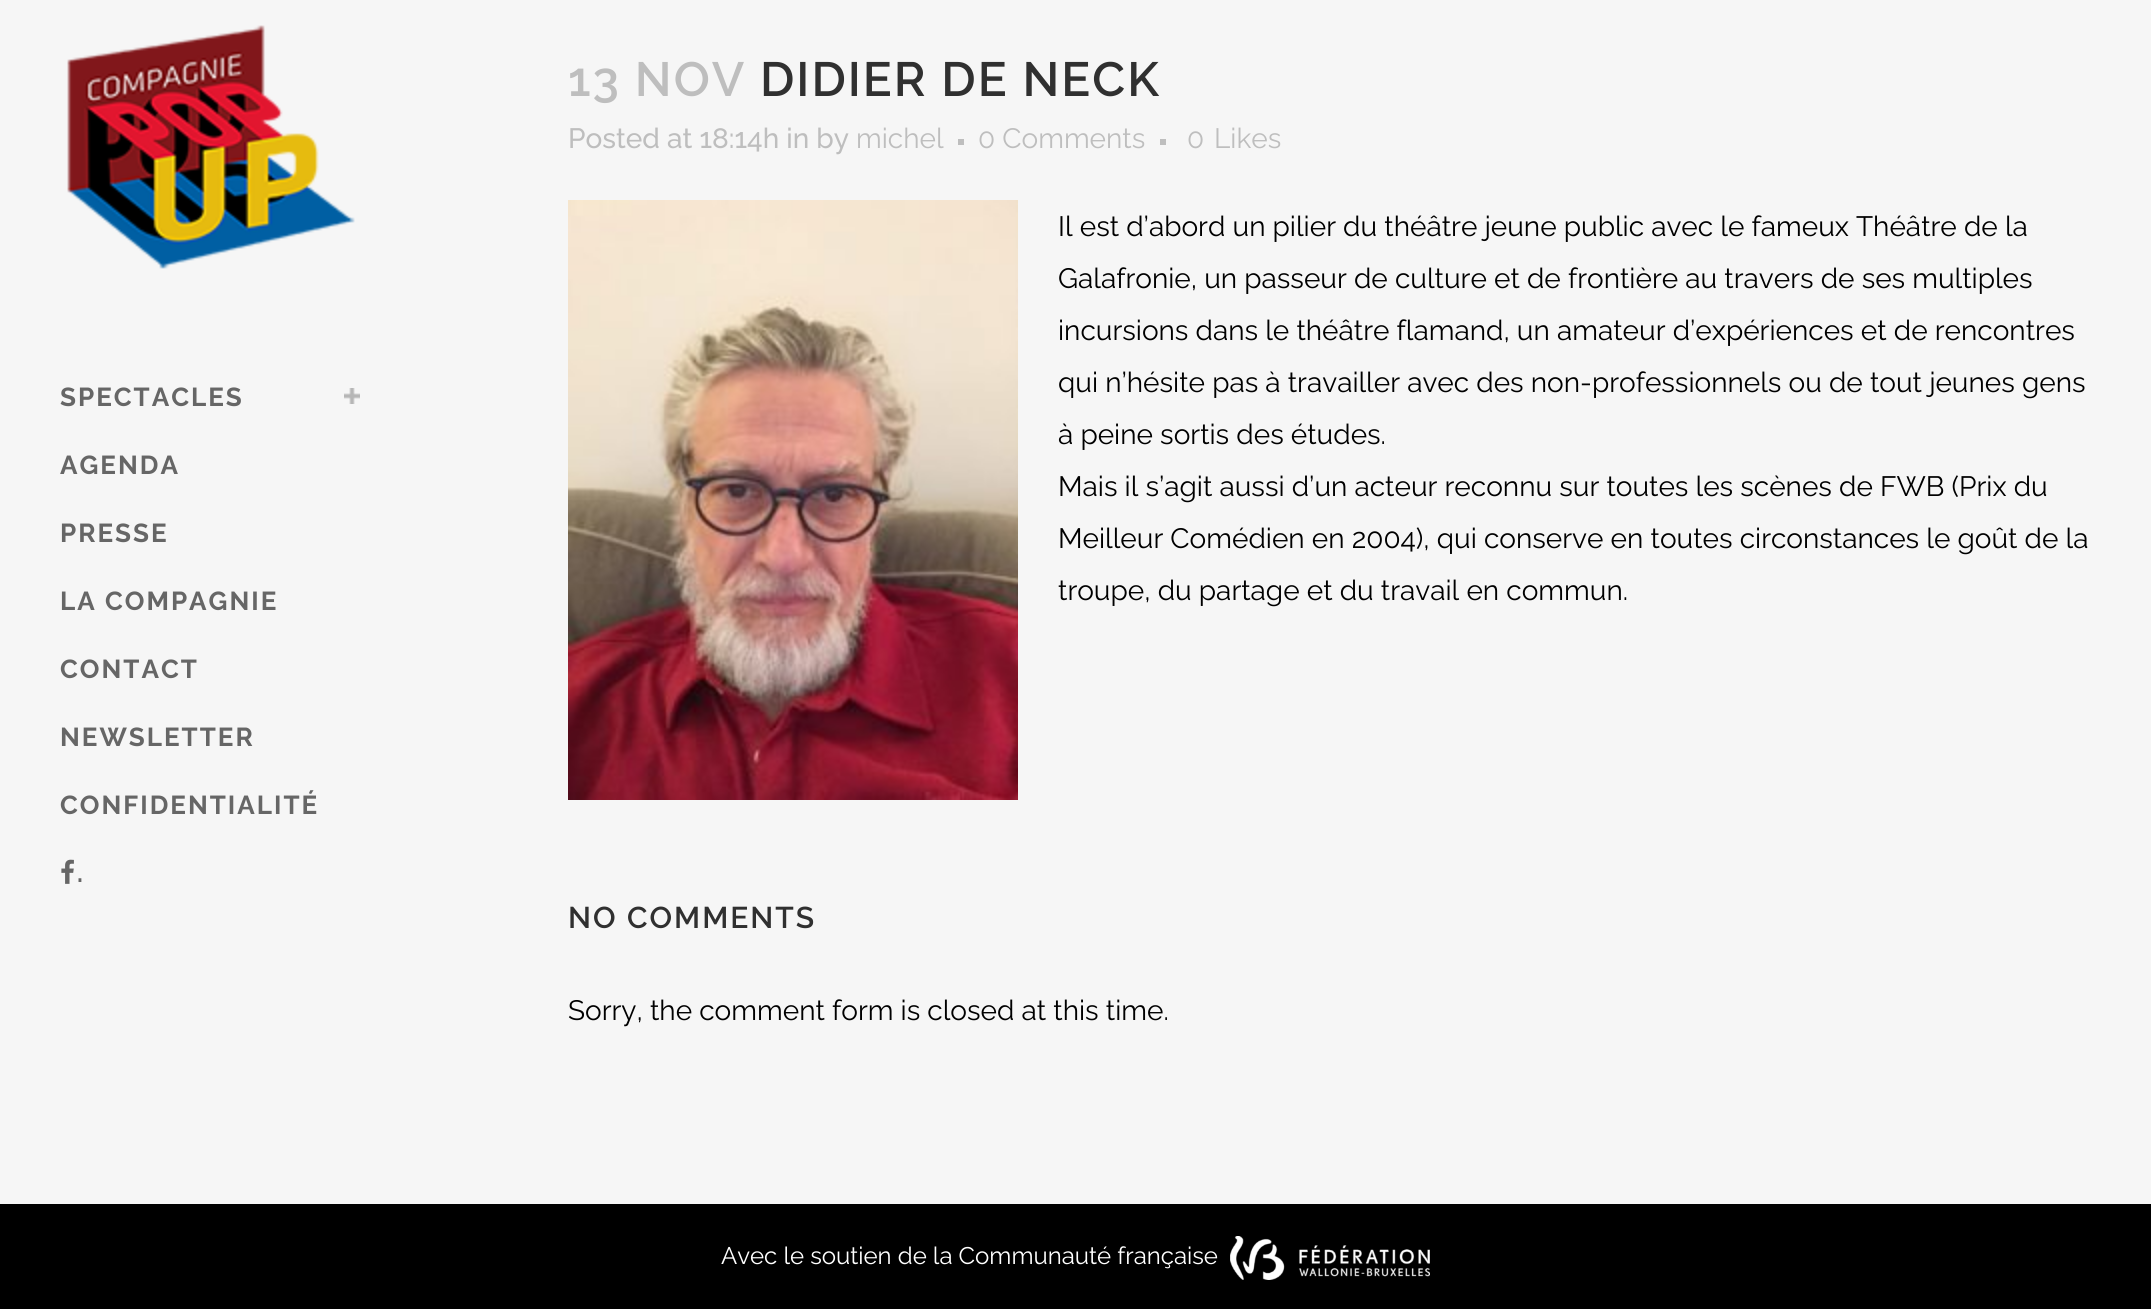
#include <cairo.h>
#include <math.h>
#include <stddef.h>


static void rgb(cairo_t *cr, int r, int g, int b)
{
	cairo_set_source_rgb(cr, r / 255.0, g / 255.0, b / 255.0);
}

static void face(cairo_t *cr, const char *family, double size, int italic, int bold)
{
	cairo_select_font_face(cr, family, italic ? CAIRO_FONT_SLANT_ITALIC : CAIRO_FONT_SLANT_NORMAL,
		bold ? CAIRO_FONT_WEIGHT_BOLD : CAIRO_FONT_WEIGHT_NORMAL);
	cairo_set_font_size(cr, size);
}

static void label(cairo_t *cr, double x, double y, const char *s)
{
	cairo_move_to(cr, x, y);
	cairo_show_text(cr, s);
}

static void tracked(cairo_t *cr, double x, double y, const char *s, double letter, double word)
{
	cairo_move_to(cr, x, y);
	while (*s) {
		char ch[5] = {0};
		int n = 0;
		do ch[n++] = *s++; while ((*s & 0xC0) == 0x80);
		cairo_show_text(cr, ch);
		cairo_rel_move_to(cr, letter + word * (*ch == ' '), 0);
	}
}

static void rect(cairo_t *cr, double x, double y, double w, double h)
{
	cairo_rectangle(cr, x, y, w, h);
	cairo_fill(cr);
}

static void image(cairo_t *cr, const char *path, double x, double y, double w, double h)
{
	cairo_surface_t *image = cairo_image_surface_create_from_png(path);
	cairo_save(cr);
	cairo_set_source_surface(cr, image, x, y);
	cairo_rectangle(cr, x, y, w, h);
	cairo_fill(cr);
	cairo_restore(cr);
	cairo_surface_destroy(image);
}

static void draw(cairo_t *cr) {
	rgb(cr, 246, 246, 246);
	cairo_paint(cr);
	image(cr, "image0.png", 67, 25, 288, 244);
	face(cr, "Raleway", 26, 0, 1);
	rgb(cr, 102, 102, 102);
	tracked(cr, 60, 406, "SPECTACLES", 2, 0);
	image(cr, "image1.png", 344, 388, 16, 16);
	tracked(cr, 60, 474, "AGENDA", 2, 0);
	tracked(cr, 60, 542, "PRESSE", 2, 0);
	tracked(cr, 60, 610, "LA COMPAGNIE", 2, 0);
	tracked(cr, 60, 678, "CONTACT", 2, 0);
	tracked(cr, 60, 746, "NEWSLETTER", 2, 0);
	tracked(cr, 60, 814, "CONFIDENTIALITÉ", 2, 0);
	image(cr, "image2.png", 61, 859, 13, 25);
	tracked(cr, 77, 882, ".", 2, 0);
	face(cr, "Raleway SemiBold", 48, 0, 0);
	rgb(cr, 190, 190, 190);
	tracked(cr, 568, 96, "13 NOV", 2, 0);
	rgb(cr, 48, 48, 48);
	tracked(cr, 760, 96, "DIDIER DE NECK", 2, 0);
	face(cr, "Raleway Medium", 28, 0, 0);
	rgb(cr, 190, 190, 190);
	label(cr, 568, 148, "Posted at 18:14h in by");
	face(cr, "Raleway", 28, 0, 0);
	label(cr, 856, 148, "michel");
	rect(cr, 958, 139, 6, 6);
	label(cr, 978, 148, "0 Comments");
	rect(cr, 1160, 139, 6, 6);
	label(cr, 1187, 148, "0");
	label(cr, 1214, 148, "Likes");
	image(cr, "image3.png", 568, 200, 450, 600);
	rgb(cr, 0, 0, 0);
	label(cr, 1058, 236, "Il est d’abord un pilier du théâtre jeune public avec le fameux Théâtre de la");
	label(cr, 1058, 288, "Galafronie, un passeur de culture et de frontière au travers de ses multiples");
	label(cr, 1058, 340, "incursions dans le théâtre flamand, un amateur d’expériences et de rencontres");
	label(cr, 1058, 392, "qui n’hésite pas à travailler avec des non-professionnels ou de tout jeunes gens");
	label(cr, 1058, 444, "à peine sortis des études.");
	label(cr, 1058, 496, "Mais il s’agit aussi d’un acteur reconnu sur toutes les scènes de FWB (Prix du");
	label(cr, 1058, 548, "Meilleur Comédien en 2004), qui conserve en toutes circonstances le goût de la");
	label(cr, 1058, 600, "troupe, du partage et du travail en commun.");
	face(cr, "Raleway SemiBold", 30, 0, 0);
	rgb(cr, 48, 48, 48);
	tracked(cr, 568, 928, "NO COMMENTS", 2, 0);
	face(cr, "Raleway", 28, 0, 0);
	rgb(cr, 0, 0, 0);
	label(cr, 568, 1020, "Sorry, the comment form is closed at this time.");
	rect(cr, 0, 1204, 2151, 105);
	face(cr, "Raleway", 24, 0, 0);
	rgb(cr, 255, 255, 255);
	label(cr, 721, 1264, "Avec le soutien de la Communauté française");
	image(cr, "image4.png", 1230, 1236, 200, 44);
}

int main(void) {
	cairo_surface_t *surface = cairo_image_surface_create(CAIRO_FORMAT_RGB24, 2151, 1309);
	cairo_t *cr = cairo_create(surface);
	cairo_font_options_t *options = cairo_font_options_create();
	cairo_font_options_set_hint_metrics(options, CAIRO_HINT_METRICS_OFF);
	cairo_font_options_set_hint_style(options, CAIRO_HINT_STYLE_NONE);
	cairo_set_font_options(cr, options);
	cairo_set_miter_limit(cr, 4);
	draw(cr);
	cairo_surface_write_to_png(surface, "render.png");
	cairo_font_options_destroy(options);
	cairo_destroy(cr);
	cairo_surface_destroy(surface);
	return 0;
}
